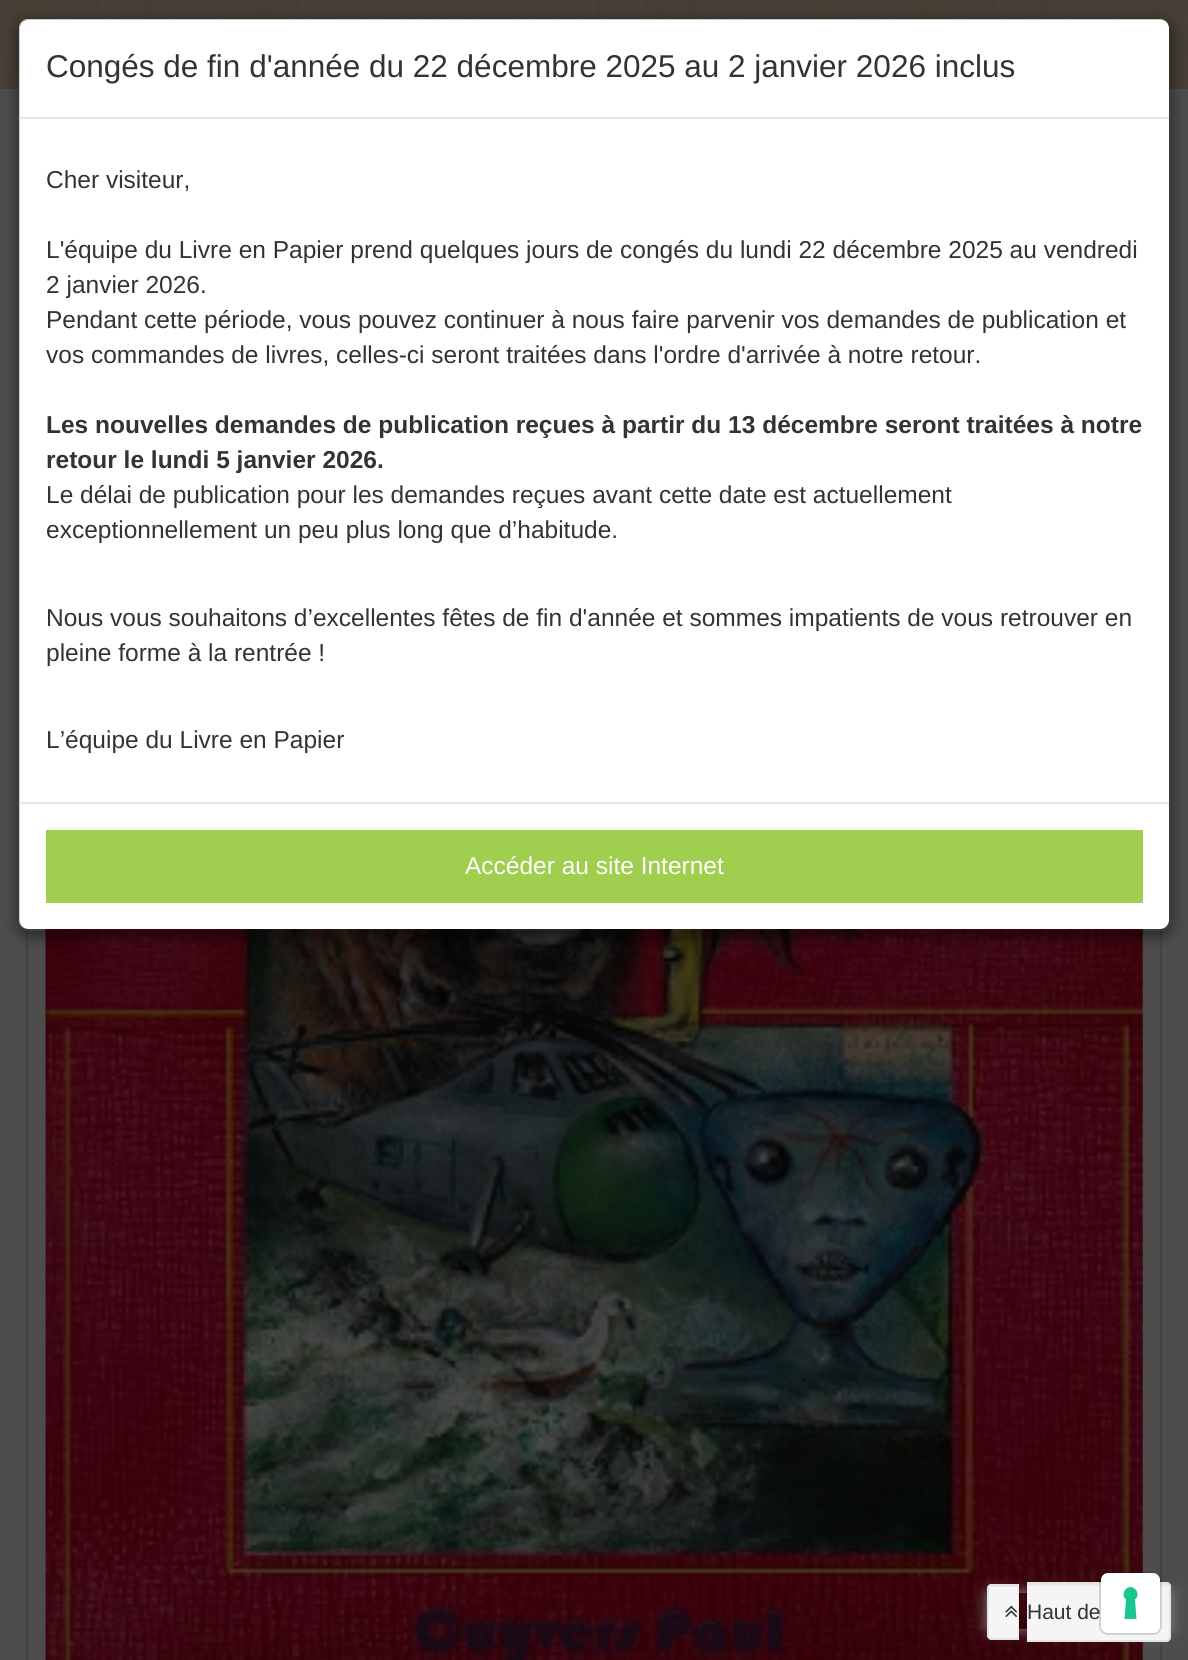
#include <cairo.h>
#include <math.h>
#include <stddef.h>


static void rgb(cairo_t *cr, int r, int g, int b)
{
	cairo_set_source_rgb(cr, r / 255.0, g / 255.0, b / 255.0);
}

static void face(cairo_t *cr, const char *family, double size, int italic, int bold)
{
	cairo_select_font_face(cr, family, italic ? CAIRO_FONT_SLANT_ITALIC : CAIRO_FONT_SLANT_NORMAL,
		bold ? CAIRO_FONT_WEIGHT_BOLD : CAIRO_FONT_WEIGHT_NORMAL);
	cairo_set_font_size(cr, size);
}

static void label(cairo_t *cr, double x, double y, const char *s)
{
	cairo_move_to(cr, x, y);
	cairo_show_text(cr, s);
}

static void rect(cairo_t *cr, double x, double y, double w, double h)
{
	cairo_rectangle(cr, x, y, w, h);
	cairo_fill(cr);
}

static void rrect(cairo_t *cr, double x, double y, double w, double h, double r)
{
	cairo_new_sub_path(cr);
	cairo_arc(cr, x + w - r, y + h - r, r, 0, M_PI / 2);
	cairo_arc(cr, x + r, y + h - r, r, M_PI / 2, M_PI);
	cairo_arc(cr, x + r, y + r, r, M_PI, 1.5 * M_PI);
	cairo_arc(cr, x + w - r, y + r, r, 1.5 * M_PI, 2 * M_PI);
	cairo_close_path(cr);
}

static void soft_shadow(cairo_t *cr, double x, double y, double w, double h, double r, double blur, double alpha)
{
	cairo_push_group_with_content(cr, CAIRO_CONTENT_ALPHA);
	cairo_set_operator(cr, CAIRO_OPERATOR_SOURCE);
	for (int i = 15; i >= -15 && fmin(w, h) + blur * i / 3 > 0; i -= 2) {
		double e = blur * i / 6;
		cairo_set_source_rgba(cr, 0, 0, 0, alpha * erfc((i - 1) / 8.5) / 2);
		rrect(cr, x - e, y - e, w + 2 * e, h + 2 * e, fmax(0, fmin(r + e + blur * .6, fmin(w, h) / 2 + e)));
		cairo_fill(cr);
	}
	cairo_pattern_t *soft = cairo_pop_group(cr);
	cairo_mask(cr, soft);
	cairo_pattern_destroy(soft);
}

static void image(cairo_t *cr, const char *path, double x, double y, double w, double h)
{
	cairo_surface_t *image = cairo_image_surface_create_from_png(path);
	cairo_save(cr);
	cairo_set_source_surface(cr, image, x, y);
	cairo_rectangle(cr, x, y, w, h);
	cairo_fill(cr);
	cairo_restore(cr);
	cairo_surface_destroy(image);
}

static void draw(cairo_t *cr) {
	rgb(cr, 77, 77, 77);
	cairo_paint(cr);
	image(cr, "image0.png", 0, 0, 1188, 89);
	cairo_rectangle(cr, 27, 152, 1134, 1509);
	rgb(cr, 67, 67, 67);
	cairo_stroke(cr);
	image(cr, "image1.png", 45, 929, 1098, 731);
	cairo_save(cr);
	cairo_set_fill_rule(cr, CAIRO_FILL_RULE_EVEN_ODD);
	cairo_new_path(cr);
	cairo_move_to(cr, 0, 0);
	cairo_line_to(cr, 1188, 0);
	cairo_line_to(cr, 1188, 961);
	cairo_line_to(cr, 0, 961);
	cairo_close_path(cr);
	cairo_move_to(cr, 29, 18);
	cairo_line_to(cr, 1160, 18);
	cairo_curve_to(cr, 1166, 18, 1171, 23, 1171, 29);
	cairo_line_to(cr, 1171, 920);
	cairo_curve_to(cr, 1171, 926, 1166, 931, 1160, 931);
	cairo_line_to(cr, 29, 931);
	cairo_curve_to(cr, 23, 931, 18, 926, 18, 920);
	cairo_line_to(cr, 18, 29);
	cairo_curve_to(cr, 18, 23, 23, 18, 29, 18);
	cairo_close_path(cr);
	cairo_clip(cr);
	rgb(cr, 0, 0, 0);
	soft_shadow(cr, 18, 23, 1153, 913, 11, 8, 0.5);
	cairo_restore(cr);
	rgb(cr, 255, 255, 255);
	rrect(cr, 19, 19, 1150, 910, 9);
	cairo_fill(cr);
	rrect(cr, 19, 19, 1151, 911, 10);
	cairo_set_source_rgba(cr, 0, 0, 0, 0.2);
	cairo_stroke(cr);
	rgb(cr, 229, 229, 229);
	rect(cr, 19, 117, 1150, 2);
	face(cr, "Liberation Sans", 31.5, 0, 0);
	rgb(cr, 51, 51, 51);
	label(cr, 46, 77, "Congés de fin d'année du 22 décembre 2025 au 2 janvier 2026 inclus");
	face(cr, "Liberation Sans", 24.5, 0, 0);
	label(cr, 46, 188, "Cher visiteur,");
	label(cr, 46, 258, "L'équipe du Livre en Papier prend quelques jours de congés du lundi 22 décembre 2025 au vendredi");
	label(cr, 46, 293, "2 janvier 2026.");
	label(cr, 46, 328, "Pendant cette période, vous pouvez continuer à nous faire parvenir vos demandes de publication et");
	label(cr, 46, 363, "vos commandes de livres, celles-ci seront traitées dans l'ordre d'arrivée à notre retour.");
	face(cr, "Liberation Sans", 24.5, 0, 1);
	label(cr, 46, 433, "Les nouvelles demandes de publication reçues à partir du 13 décembre seront traitées à notre");
	label(cr, 46, 468, "retour le lundi 5 janvier 2026.");
	face(cr, "Liberation Sans", 24.5, 0, 0);
	label(cr, 46, 503, "Le délai de publication pour les demandes reçues avant cette date est actuellement");
	label(cr, 46, 538, "exceptionnellement un peu plus long que d’habitude.");
	label(cr, 46, 626, "Nous vous souhaitons d’excellentes fêtes de fin d'année et sommes impatients de vous retrouver en");
	label(cr, 46, 661, "pleine forme à la rentrée !");
	label(cr, 46, 748, "L’équipe du Livre en Papier");
	rgb(cr, 229, 229, 229);
	rect(cr, 19, 802, 1150, 2);
	rgb(cr, 160, 206, 78);
	rect(cr, 46, 830, 1097, 73);
	rgb(cr, 255, 255, 255);
	label(cr, 465, 874, "Accéder au site Internet");
	cairo_save(cr);
	cairo_set_fill_rule(cr, CAIRO_FILL_RULE_EVEN_ODD);
	cairo_new_path(cr);
	cairo_move_to(cr, 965, 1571);
	cairo_line_to(cr, 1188, 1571);
	cairo_line_to(cr, 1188, 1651);
	cairo_line_to(cr, 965, 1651);
	cairo_close_path(cr);
	cairo_move_to(cr, 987, 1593);
	cairo_line_to(cr, 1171, 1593);
	cairo_line_to(cr, 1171, 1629);
	cairo_line_to(cr, 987, 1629);
	cairo_close_path(cr);
	cairo_clip(cr);
	rgb(cr, 136, 136, 136);
	soft_shadow(cr, 987, 1593, 184, 36, 0, 7, 1);
	cairo_restore(cr);
	rgb(cr, 245, 245, 245);
	cairo_new_path(cr);
	cairo_move_to(cr, 992, 1584);
	cairo_line_to(cr, 1019, 1584);
	cairo_line_to(cr, 1019, 1640);
	cairo_line_to(cr, 992, 1640);
	cairo_curve_to(cr, 989, 1640, 987, 1638, 987, 1635);
	cairo_line_to(cr, 987, 1589);
	cairo_curve_to(cr, 987, 1586, 989, 1584, 992, 1584);
	cairo_close_path(cr);
	cairo_fill(cr);
	rgb(cr, 233, 233, 233);
	cairo_new_path(cr);
	cairo_move_to(cr, 992, 1587);
	cairo_line_to(cr, 1018, 1587);
	cairo_line_to(cr, 1018, 1638);
	cairo_line_to(cr, 1019, 1638);
	cairo_line_to(cr, 1019, 1586);
	cairo_line_to(cr, 1002, 1586);
	cairo_curve_to(cr, 997, 1586, 989, 1584, 989, 1591);
	cairo_curve_to(cr, 989, 1589, 990, 1587, 992, 1587);
	cairo_close_path(cr);
	cairo_fill(cr);
	rgb(cr, 227, 227, 227);
	cairo_set_fill_rule(cr, CAIRO_FILL_RULE_EVEN_ODD);
	cairo_new_path(cr);
	cairo_move_to(cr, 992, 1584);
	cairo_line_to(cr, 1018, 1584);
	cairo_line_to(cr, 1018, 1640);
	cairo_line_to(cr, 992, 1640);
	cairo_curve_to(cr, 989, 1640, 987, 1637, 987, 1634);
	cairo_line_to(cr, 987, 1589);
	cairo_curve_to(cr, 987, 1586, 989, 1584, 992, 1584);
	cairo_close_path(cr);
	cairo_move_to(cr, 992, 1586);
	cairo_line_to(cr, 1018, 1586);
	cairo_line_to(cr, 1018, 1638);
	cairo_line_to(cr, 992, 1638);
	cairo_curve_to(cr, 990, 1638, 989, 1636, 989, 1634);
	cairo_line_to(cr, 989, 1589);
	cairo_curve_to(cr, 989, 1587, 990, 1586, 992, 1586);
	cairo_close_path(cr);
	cairo_fill(cr);
	rgb(cr, 245, 245, 245);
	cairo_new_path(cr);
	cairo_move_to(cr, 1027, 1582);
	cairo_line_to(cr, 1166, 1582);
	cairo_curve_to(cr, 1169, 1582, 1171, 1584, 1171, 1587);
	cairo_line_to(cr, 1171, 1637);
	cairo_curve_to(cr, 1171, 1640, 1169, 1642, 1166, 1642);
	cairo_line_to(cr, 1027, 1642);
	cairo_close_path(cr);
	cairo_fill(cr);
	rgb(cr, 233, 233, 233);
	cairo_set_fill_rule(cr, CAIRO_FILL_RULE_WINDING);
	cairo_new_path(cr);
	cairo_move_to(cr, 1027, 1586);
	cairo_line_to(cr, 1166, 1586);
	cairo_curve_to(cr, 1167, 1586, 1169, 1587, 1169, 1589);
	cairo_line_to(cr, 1169, 1588);
	cairo_curve_to(cr, 1169, 1586, 1167, 1584, 1165, 1584);
	cairo_line_to(cr, 1027, 1584);
	cairo_close_path(cr);
	cairo_fill(cr);
	rgb(cr, 227, 227, 227);
	cairo_set_fill_rule(cr, CAIRO_FILL_RULE_EVEN_ODD);
	cairo_new_path(cr);
	cairo_move_to(cr, 1027, 1582);
	cairo_line_to(cr, 1166, 1582);
	cairo_curve_to(cr, 1168, 1582, 1171, 1584, 1171, 1587);
	cairo_line_to(cr, 1171, 1636);
	cairo_curve_to(cr, 1171, 1639, 1168, 1642, 1166, 1642);
	cairo_line_to(cr, 1027, 1642);
	cairo_close_path(cr);
	cairo_move_to(cr, 1027, 1584);
	cairo_line_to(cr, 1166, 1584);
	cairo_curve_to(cr, 1167, 1584, 1169, 1585, 1169, 1587);
	cairo_line_to(cr, 1169, 1636);
	cairo_curve_to(cr, 1169, 1638, 1167, 1640, 1166, 1640);
	cairo_line_to(cr, 1027, 1640);
	cairo_close_path(cr);
	cairo_fill(cr);
	image(cr, "image2.png", 1005, 1605, 13, 12);
	face(cr, "Liberation Sans", 21, 0, 0);
	rgb(cr, 51, 51, 51);
	label(cr, 1027, 1619, "Haut de");
	rrect(cr, 1100, 1573, 61, 61, 8);
	cairo_set_source_rgba(cr, 0, 0, 0, 0.15);
	cairo_stroke(cr);
	rgb(cr, 255, 255, 255);
	rrect(cr, 1101, 1573, 59, 60, 7);
	cairo_fill(cr);
	rgb(cr, 28, 198, 145);
	cairo_new_path(cr);
	cairo_move_to(cr, 1130.5, 1587);
	cairo_curve_to(cr, 1137, 1587.5, 1140, 1595.5, 1135, 1599.5);
	cairo_line_to(cr, 1136.5, 1619);
	cairo_line_to(cr, 1124.5, 1619);
	cairo_line_to(cr, 1126, 1599.5);
	cairo_curve_to(cr, 1121, 1595.5, 1124, 1587.5, 1130.5, 1587);
	cairo_close_path(cr);
	cairo_fill(cr);
}

int main(void) {
	cairo_surface_t *surface = cairo_image_surface_create(CAIRO_FORMAT_RGB24, 1188, 1660);
	cairo_t *cr = cairo_create(surface);
	cairo_font_options_t *options = cairo_font_options_create();
	cairo_font_options_set_hint_metrics(options, CAIRO_HINT_METRICS_OFF);
	cairo_font_options_set_hint_style(options, CAIRO_HINT_STYLE_NONE);
	cairo_set_font_options(cr, options);
	cairo_set_miter_limit(cr, 4);
	draw(cr);
	cairo_surface_write_to_png(surface, "render.png");
	cairo_font_options_destroy(options);
	cairo_destroy(cr);
	cairo_surface_destroy(surface);
	return 0;
}
